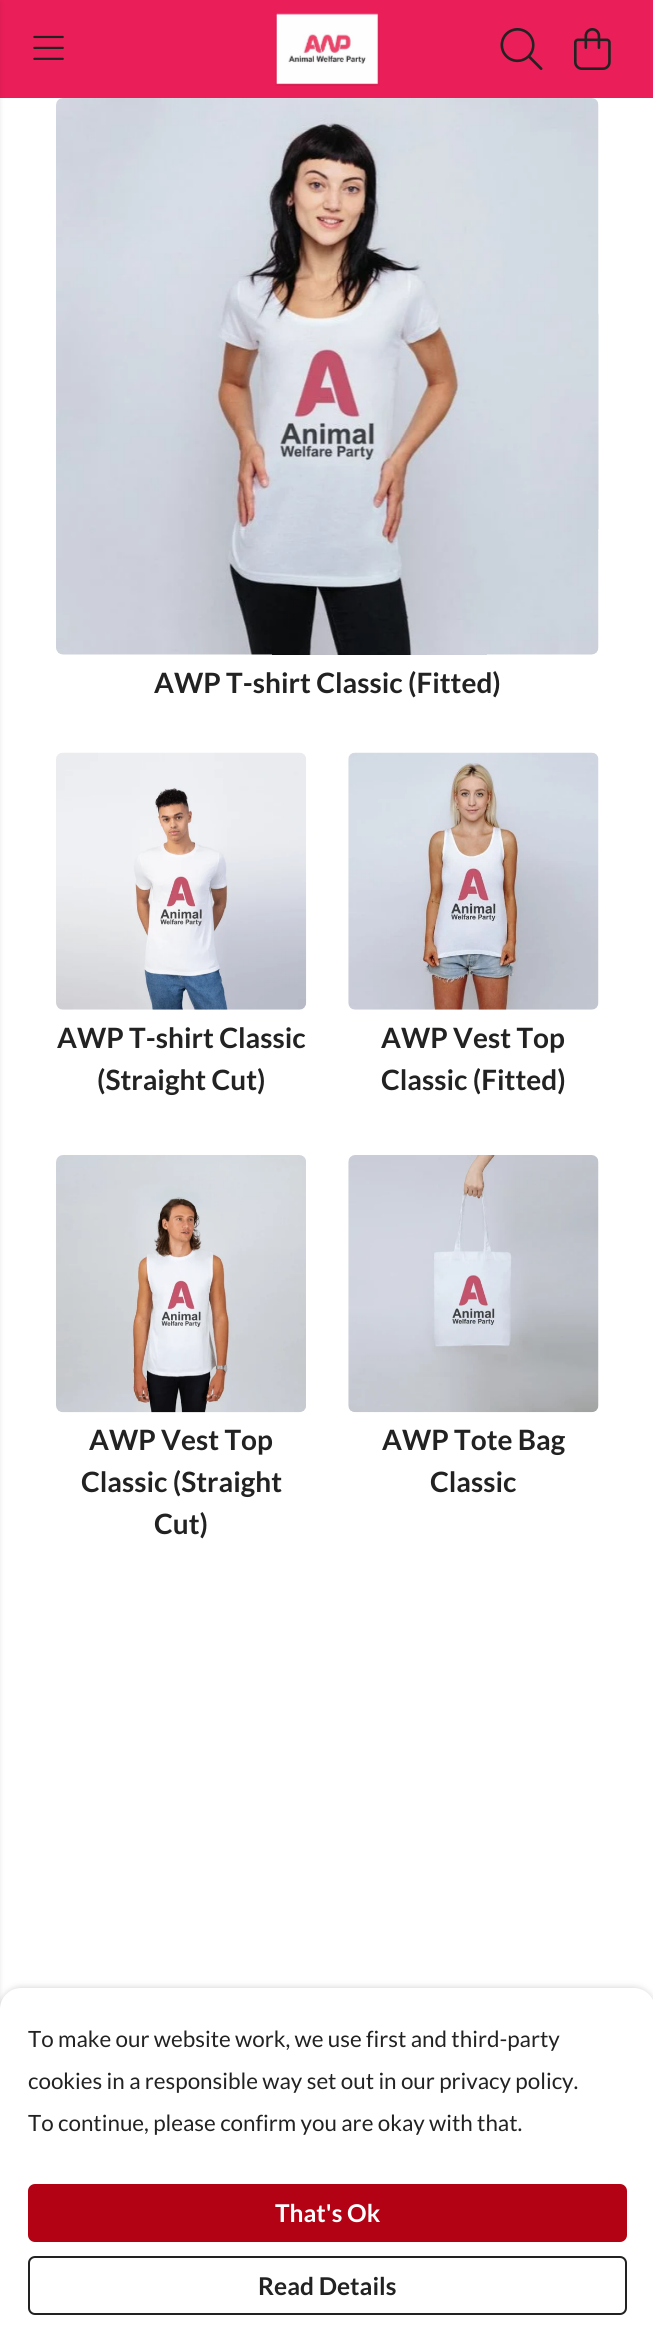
#include <cairo.h>
#include <math.h>
#include <stddef.h>


static void rgb(cairo_t *cr, int r, int g, int b)
{
	cairo_set_source_rgb(cr, r / 255.0, g / 255.0, b / 255.0);
}

static void face(cairo_t *cr, const char *family, double size, int italic, int bold)
{
	cairo_select_font_face(cr, family, italic ? CAIRO_FONT_SLANT_ITALIC : CAIRO_FONT_SLANT_NORMAL,
		bold ? CAIRO_FONT_WEIGHT_BOLD : CAIRO_FONT_WEIGHT_NORMAL);
	cairo_set_font_size(cr, size);
}

static void label(cairo_t *cr, double x, double y, const char *s)
{
	cairo_move_to(cr, x, y);
	cairo_show_text(cr, s);
}

static void rect(cairo_t *cr, double x, double y, double w, double h)
{
	cairo_rectangle(cr, x, y, w, h);
	cairo_fill(cr);
}

static void rrect(cairo_t *cr, double x, double y, double w, double h, double r)
{
	cairo_new_sub_path(cr);
	cairo_arc(cr, x + w - r, y + h - r, r, 0, M_PI / 2);
	cairo_arc(cr, x + r, y + h - r, r, M_PI / 2, M_PI);
	cairo_arc(cr, x + r, y + r, r, M_PI, 1.5 * M_PI);
	cairo_arc(cr, x + w - r, y + r, r, 1.5 * M_PI, 2 * M_PI);
	cairo_close_path(cr);
}

static void soft_shadow(cairo_t *cr, double x, double y, double w, double h, double r, double blur, double alpha)
{
	cairo_push_group_with_content(cr, CAIRO_CONTENT_ALPHA);
	cairo_set_operator(cr, CAIRO_OPERATOR_SOURCE);
	for (int i = 15; i >= -15 && fmin(w, h) + blur * i / 3 > 0; i -= 2) {
		double e = blur * i / 6;
		cairo_set_source_rgba(cr, 0, 0, 0, alpha * erfc((i - 1) / 8.5) / 2);
		rrect(cr, x - e, y - e, w + 2 * e, h + 2 * e, fmax(0, fmin(r + e + blur * .6, fmin(w, h) / 2 + e)));
		cairo_fill(cr);
	}
	cairo_pattern_t *soft = cairo_pop_group(cr);
	cairo_mask(cr, soft);
	cairo_pattern_destroy(soft);
}

static void image(cairo_t *cr, const char *path, double x, double y, double w, double h)
{
	cairo_surface_t *image = cairo_image_surface_create_from_png(path);
	cairo_save(cr);
	cairo_set_source_surface(cr, image, x, y);
	cairo_rectangle(cr, x, y, w, h);
	cairo_fill(cr);
	cairo_restore(cr);
	cairo_surface_destroy(image);
}

static void draw(cairo_t *cr) {
	rgb(cr, 255, 255, 255);
	cairo_paint(cr);
	rgb(cr, 234, 30, 88);
	rect(cr, 0, 0, 653, 98);
	image(cr, "image0.png", 33, 35, 31, 25);
	image(cr, "image1.png", 275, 13, 105, 73);
	image(cr, "image2.png", 500, 28, 43, 42);
	image(cr, "image3.png", 574, 28, 37, 42);
	rgb(cr, 0, 0, 0);
	soft_shadow(cr, -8, 2, 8, 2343, 0, 2.5, 0.1);
	image(cr, "image4.png", 56, 98, 543, 557);
	face(cr, "Lato", 28, 0, 1);
	rgb(cr, 34, 34, 34);
	label(cr, 154, 693, "AWP T-shirt Classic (Fitted)");
	image(cr, "image5.png", 56, 752, 251, 258);
	label(cr, 57, 1048, "AWP T-shirt Classic");
	label(cr, 97, 1090, "(Straight Cut)");
	image(cr, "image6.png", 348, 752, 251, 258);
	label(cr, 381, 1048, "AWP Vest Top");
	label(cr, 381, 1090, "Classic (Fitted)");
	image(cr, "image7.png", 56, 1155, 250, 258);
	label(cr, 89, 1450, "AWP Vest Top");
	label(cr, 81, 1492, "Classic (Straight");
	label(cr, 154, 1534, "Cut)");
	image(cr, "image8.png", 348, 1155, 251, 258);
	label(cr, 382, 1450, "AWP Tote Bag");
	label(cr, 430, 1492, "Classic");
	rgb(cr, 0, 0, 0);
	soft_shadow(cr, 0, 1988, 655, 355, 21, 3.5, 0.2);
	rgb(cr, 255, 255, 255);
	cairo_new_path(cr);
	cairo_move_to(cr, 21, 1988);
	cairo_line_to(cr, 634, 1988);
	cairo_curve_to(cr, 645.5, 1988, 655, 1997.5, 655, 2009);
	cairo_line_to(cr, 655, 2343);
	cairo_line_to(cr, 0, 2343);
	cairo_line_to(cr, 0, 2009);
	cairo_curve_to(cr, 0, 1997.5, 9.5, 1988, 21, 1988);
	cairo_close_path(cr);
	cairo_fill(cr);
	face(cr, "Lato", 22.4, 0, 0);
	rgb(cr, 34, 34, 34);
	label(cr, 28, 2047, "To make our website work, we use first and third-party");
	label(cr, 28, 2089, "cookies in a responsible way set out in our privacy policy.");
	label(cr, 28, 2131, "To continue, please confirm you are okay with that.");
	rgb(cr, 179, 2, 19);
	rrect(cr, 28, 2184, 599, 58, 7);
	cairo_fill(cr);
	face(cr, "Lato", 24.5, 0, 1);
	rgb(cr, 255, 255, 255);
	label(cr, 275, 2222, "That's Ok");
	rrect(cr, 29, 2257, 597, 57, 6);
	rgb(cr, 34, 34, 34);
	cairo_stroke(cr);
	label(cr, 258, 2295, "Read Details");
}

int main(void) {
	cairo_surface_t *surface = cairo_image_surface_create(CAIRO_FORMAT_RGB24, 653, 2342);
	cairo_t *cr = cairo_create(surface);
	cairo_font_options_t *options = cairo_font_options_create();
	cairo_font_options_set_hint_metrics(options, CAIRO_HINT_METRICS_OFF);
	cairo_font_options_set_hint_style(options, CAIRO_HINT_STYLE_NONE);
	cairo_set_font_options(cr, options);
	cairo_set_miter_limit(cr, 4);
	draw(cr);
	cairo_surface_write_to_png(surface, "render.png");
	cairo_font_options_destroy(options);
	cairo_destroy(cr);
	cairo_surface_destroy(surface);
	return 0;
}
